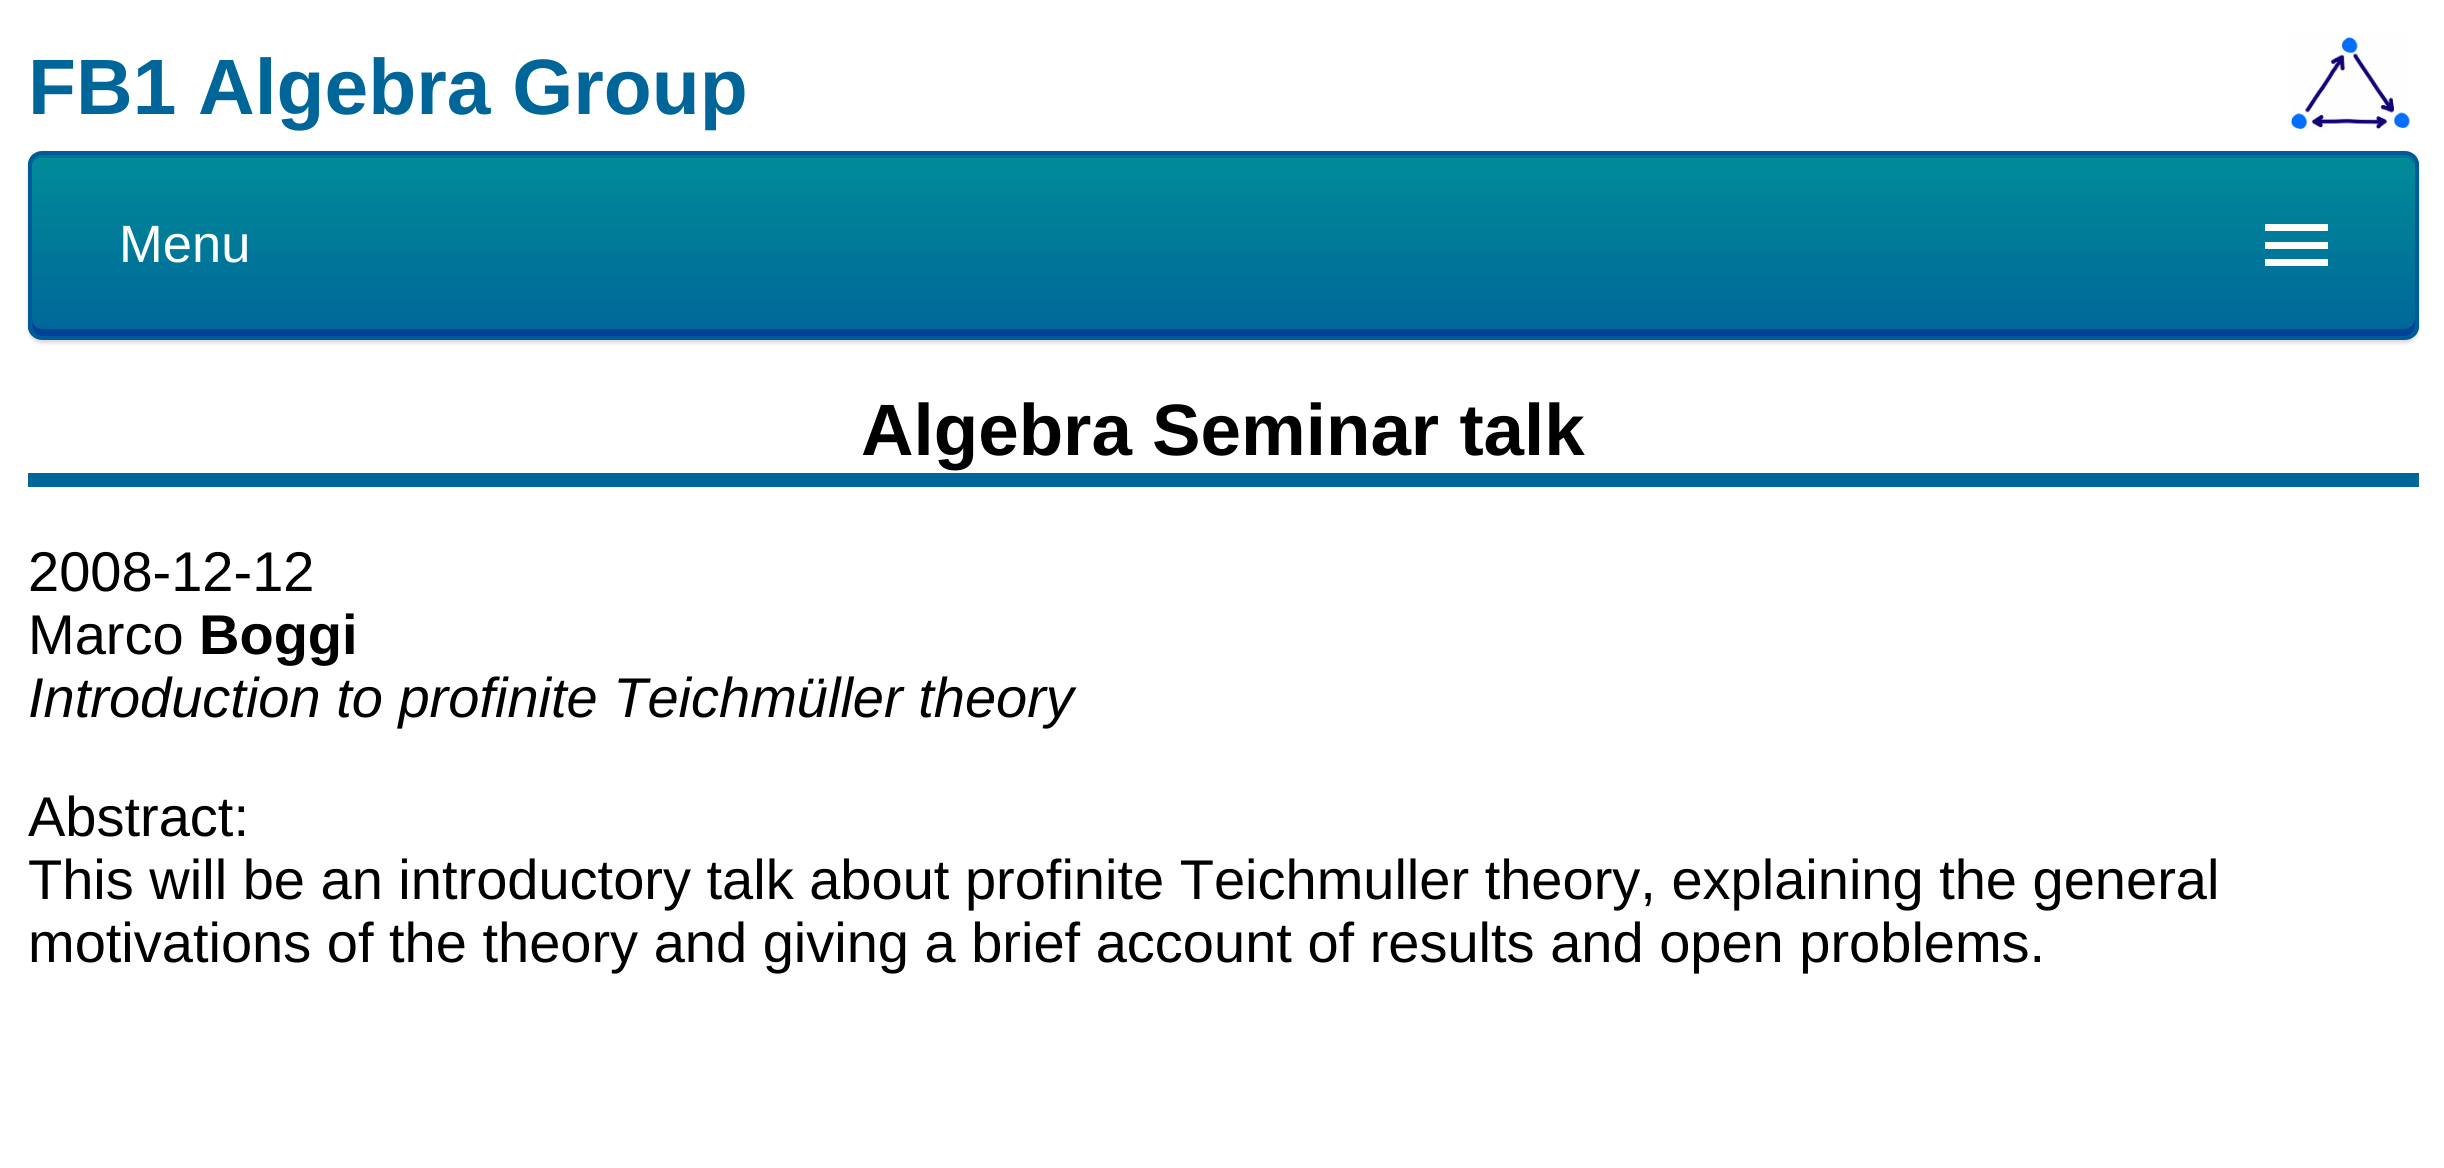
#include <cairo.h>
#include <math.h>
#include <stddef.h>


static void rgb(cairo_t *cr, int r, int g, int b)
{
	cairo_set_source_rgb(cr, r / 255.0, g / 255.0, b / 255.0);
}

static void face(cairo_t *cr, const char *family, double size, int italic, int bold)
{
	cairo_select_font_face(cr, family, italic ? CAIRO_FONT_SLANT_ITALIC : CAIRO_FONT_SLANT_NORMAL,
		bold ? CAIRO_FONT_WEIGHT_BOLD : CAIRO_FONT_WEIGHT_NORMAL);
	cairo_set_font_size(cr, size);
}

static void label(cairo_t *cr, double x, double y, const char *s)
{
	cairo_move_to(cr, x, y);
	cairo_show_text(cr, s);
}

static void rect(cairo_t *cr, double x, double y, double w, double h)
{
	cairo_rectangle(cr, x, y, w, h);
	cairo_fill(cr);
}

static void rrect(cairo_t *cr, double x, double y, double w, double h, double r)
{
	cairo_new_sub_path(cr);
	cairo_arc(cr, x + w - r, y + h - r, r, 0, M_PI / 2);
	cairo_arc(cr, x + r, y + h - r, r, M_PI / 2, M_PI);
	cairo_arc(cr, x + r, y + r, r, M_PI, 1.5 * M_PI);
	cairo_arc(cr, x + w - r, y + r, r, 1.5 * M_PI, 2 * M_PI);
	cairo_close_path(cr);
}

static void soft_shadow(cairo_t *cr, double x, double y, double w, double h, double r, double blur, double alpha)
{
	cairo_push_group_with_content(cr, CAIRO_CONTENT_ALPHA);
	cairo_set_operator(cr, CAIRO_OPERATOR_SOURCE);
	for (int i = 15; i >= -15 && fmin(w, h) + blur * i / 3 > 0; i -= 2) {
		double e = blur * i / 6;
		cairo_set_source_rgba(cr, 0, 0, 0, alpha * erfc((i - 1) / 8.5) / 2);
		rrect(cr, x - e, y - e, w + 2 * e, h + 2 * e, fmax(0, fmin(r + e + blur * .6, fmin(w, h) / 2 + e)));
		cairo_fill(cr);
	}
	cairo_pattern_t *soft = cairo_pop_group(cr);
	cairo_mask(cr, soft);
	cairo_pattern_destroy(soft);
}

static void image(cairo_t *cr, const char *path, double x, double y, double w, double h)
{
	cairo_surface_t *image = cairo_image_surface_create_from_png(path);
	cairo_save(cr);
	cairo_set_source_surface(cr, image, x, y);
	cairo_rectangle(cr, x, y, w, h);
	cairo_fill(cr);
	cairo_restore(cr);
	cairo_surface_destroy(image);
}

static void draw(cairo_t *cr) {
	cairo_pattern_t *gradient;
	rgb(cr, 255, 255, 255);
	cairo_paint(cr);
	image(cr, "image0.png", 2290, 35, 120, 96);
	face(cr, "Liberation Sans", 78.5, 0, 1);
	rgb(cr, 0, 102, 153);
	label(cr, 28, 114, "FB1 Algebra Group");
	rgb(cr, 0, 0, 0);
	soft_shadow(cr, 28, 154, 2391, 189, 14, 2, 0.15);
	cairo_save(cr);
	rrect(cr, 28, 151, 2391, 189, 14);
	cairo_clip(cr);
	gradient = cairo_pattern_create_linear(1223, 336, 1223, 154);
	cairo_pattern_add_color_stop_rgba(gradient, 0, 0, 0.4, 0.6, 1);
	cairo_pattern_add_color_stop_rgba(gradient, 1, 0, 0.549, 0.6, 1);
	cairo_set_source(cr, gradient);
	cairo_pattern_destroy(gradient);
	rect(cr, 28, 154, 2391, 182);
	cairo_restore(cr);
	rgb(cr, 0, 115, 153);
	cairo_new_path(cr);
	cairo_move_to(cr, 42, 158);
	cairo_line_to(cr, 2404, 158);
	cairo_curve_to(cr, 2410, 158, 2415, 162, 2415, 168);
	cairo_curve_to(cr, 2415, 161, 2412, 154, 2404, 154);
	cairo_line_to(cr, 43, 154);
	cairo_curve_to(cr, 35, 154, 32, 161, 32, 168);
	cairo_curve_to(cr, 32, 162, 36, 158, 42, 158);
	cairo_close_path(cr);
	cairo_fill(cr);
	rgb(cr, 0, 64, 153);
	cairo_new_path(cr);
	cairo_move_to(cr, 32, 318);
	cairo_curve_to(cr, 32, 326, 32, 336, 43, 336);
	cairo_line_to(cr, 2404, 336);
	cairo_curve_to(cr, 2415, 336, 2415, 326, 2415, 318);
	cairo_curve_to(cr, 2415, 324, 2410, 329, 2404, 329);
	cairo_line_to(cr, 42, 329);
	cairo_curve_to(cr, 36, 329, 32, 324, 32, 318);
	cairo_close_path(cr);
	cairo_fill(cr);
	rrect(cr, 30, 153, 2387, 185, 12);
	rgb(cr, 0, 89, 153);
	cairo_set_line_width(cr, 4);
	cairo_stroke(cr);
	face(cr, "Liberation Sans", 52.5, 0, 0);
	rgb(cr, 252, 254, 251);
	label(cr, 119, 262, "Menu");
	rect(cr, 2265, 224, 63, 7);
	rect(cr, 2265, 242, 63, 7);
	rect(cr, 2265, 259, 63, 7);
	rgb(cr, 0, 102, 153);
	rect(cr, 28, 473, 2391, 14);
	face(cr, "Liberation Sans", 72.75, 0, 1);
	rgb(cr, 0, 0, 0);
	label(cr, 861, 455, "Algebra Seminar talk");
	face(cr, "Liberation Sans", 56, 0, 0);
	label(cr, 28, 591, "2008-12-12");
	label(cr, 28, 654, "Marco");
	face(cr, "Liberation Sans", 56, 0, 1);
	label(cr, 199, 654, "Boggi");
	face(cr, "Liberation Sans", 56, 1, 0);
	label(cr, 28, 717, "Introduction to profinite Teichmüller theory");
	face(cr, "Liberation Sans", 56, 0, 0);
	label(cr, 28, 836, "Abstract:");
	label(cr, 28, 899, "This will be an introductory talk about profinite Teichmuller theory, explaining the general");
	label(cr, 28, 962, "motivations of the theory and giving a brief account of results and open problems.");
}

int main(void) {
	cairo_surface_t *surface = cairo_image_surface_create(CAIRO_FORMAT_RGB24, 2444, 1168);
	cairo_t *cr = cairo_create(surface);
	cairo_font_options_t *options = cairo_font_options_create();
	cairo_font_options_set_hint_metrics(options, CAIRO_HINT_METRICS_OFF);
	cairo_font_options_set_hint_style(options, CAIRO_HINT_STYLE_NONE);
	cairo_set_font_options(cr, options);
	cairo_set_miter_limit(cr, 4);
	draw(cr);
	cairo_surface_write_to_png(surface, "render.png");
	cairo_font_options_destroy(options);
	cairo_destroy(cr);
	cairo_surface_destroy(surface);
	return 0;
}
